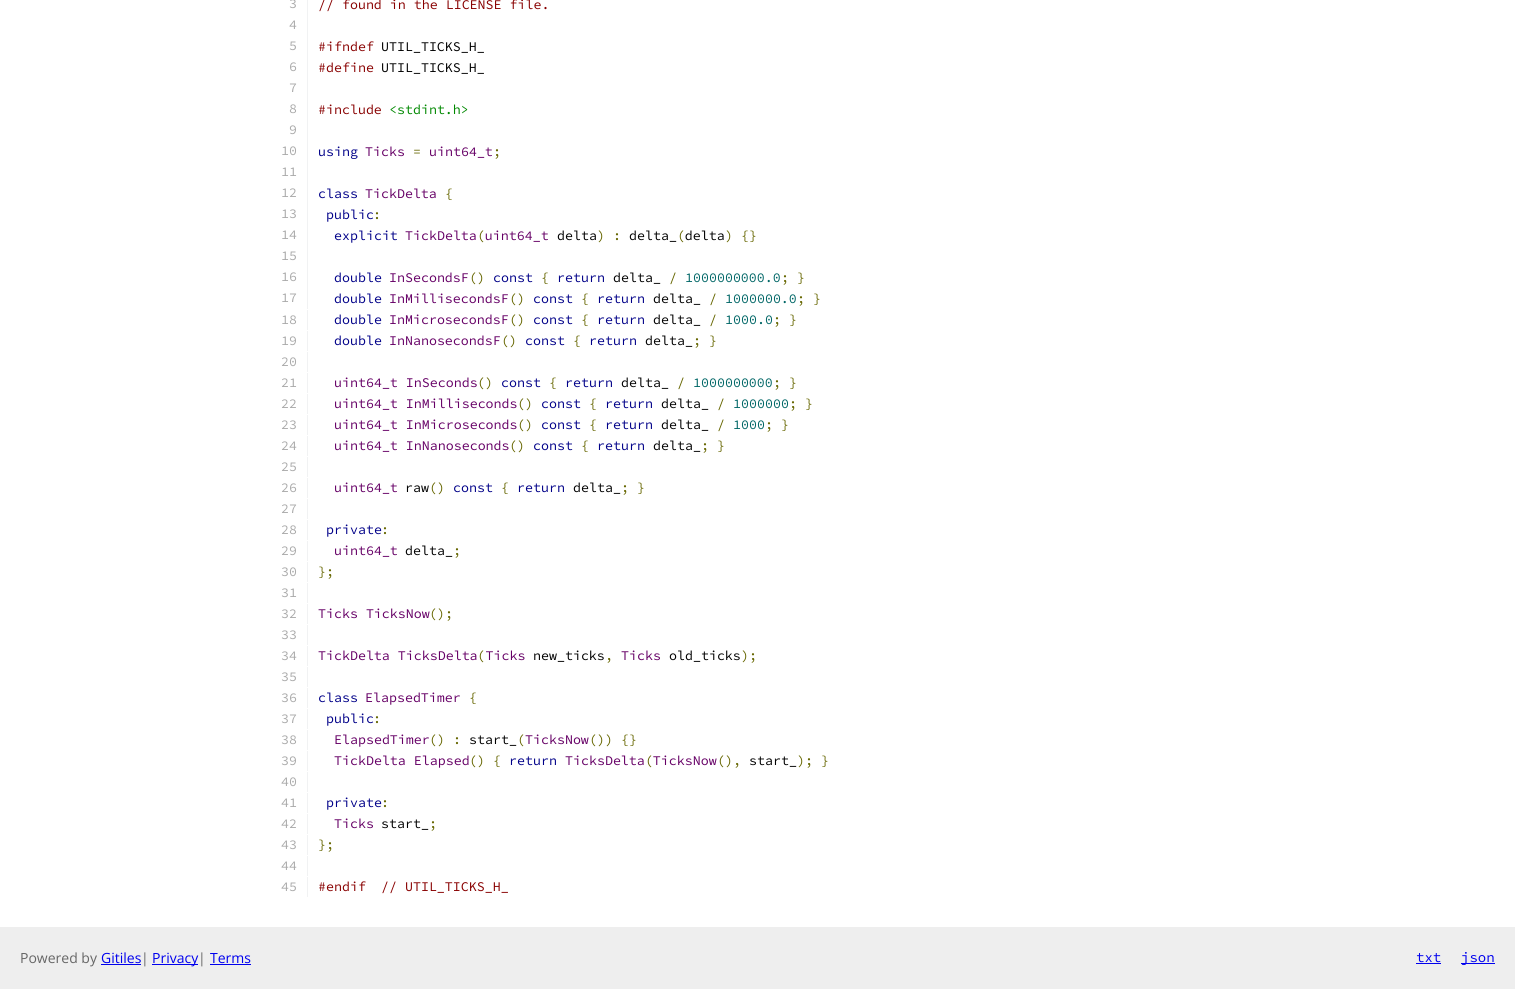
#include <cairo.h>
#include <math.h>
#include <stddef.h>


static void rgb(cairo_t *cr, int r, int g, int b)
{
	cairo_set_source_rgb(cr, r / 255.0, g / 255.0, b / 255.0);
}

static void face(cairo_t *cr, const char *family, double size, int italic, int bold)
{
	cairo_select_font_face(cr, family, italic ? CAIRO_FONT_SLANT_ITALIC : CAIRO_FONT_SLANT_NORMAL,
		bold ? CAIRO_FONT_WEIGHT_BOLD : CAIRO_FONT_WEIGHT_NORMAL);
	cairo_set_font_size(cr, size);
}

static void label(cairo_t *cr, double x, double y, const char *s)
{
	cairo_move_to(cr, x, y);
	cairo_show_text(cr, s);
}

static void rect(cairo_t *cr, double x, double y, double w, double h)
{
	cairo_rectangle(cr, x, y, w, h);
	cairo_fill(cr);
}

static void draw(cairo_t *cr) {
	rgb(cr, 255, 255, 255);
	cairo_paint(cr);
	rgb(cr, 241, 242, 243);
	rect(cr, 307, 0, 1, 309);
	face(cr, "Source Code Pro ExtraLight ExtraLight", 13.3, 0, 0);
	rgb(cr, 170, 170, 170);
	label(cr, 289, 8, "3");
	rgb(cr, 136, 0, 0);
	label(cr, 318, 9, "// found in the LICENSE file.");
	rgb(cr, 170, 170, 170);
	label(cr, 289, 29, "4");
	label(cr, 289, 50, "5");
	rgb(cr, 136, 0, 0);
	label(cr, 318, 51, "#ifndef");
	rgb(cr, 0, 0, 0);
	label(cr, 381, 51, "UTIL_TICKS_H_");
	rgb(cr, 170, 170, 170);
	label(cr, 289, 71, "6");
	rgb(cr, 136, 0, 0);
	label(cr, 318, 72, "#define");
	rgb(cr, 0, 0, 0);
	label(cr, 381, 72, "UTIL_TICKS_H_");
	rgb(cr, 170, 170, 170);
	label(cr, 289, 92, "7");
	label(cr, 289, 113, "8");
	rgb(cr, 136, 0, 0);
	label(cr, 318, 114, "#include");
	rgb(cr, 0, 136, 0);
	label(cr, 389, 114, "<stdint.h>");
	rgb(cr, 170, 170, 170);
	label(cr, 289, 134, "9");
	label(cr, 281, 155, "10");
	rgb(cr, 0, 0, 136);
	label(cr, 318, 156, "using");
	rgb(cr, 102, 0, 102);
	label(cr, 365, 156, "Ticks");
	rgb(cr, 102, 102, 0);
	label(cr, 413, 156, "=");
	rgb(cr, 102, 0, 102);
	label(cr, 429, 156, "uint64_t");
	rgb(cr, 102, 102, 0);
	label(cr, 493, 156, ";");
	rgb(cr, 170, 170, 170);
	label(cr, 281, 176, "11");
	label(cr, 281, 197, "12");
	rgb(cr, 0, 0, 136);
	label(cr, 318, 198, "class");
	rgb(cr, 102, 0, 102);
	label(cr, 365, 198, "TickDelta");
	rgb(cr, 102, 102, 0);
	label(cr, 445, 198, "{");
	rgb(cr, 170, 170, 170);
	label(cr, 281, 218, "13");
	rgb(cr, 0, 0, 136);
	label(cr, 326, 219, "public");
	rgb(cr, 102, 102, 0);
	label(cr, 373, 219, ":");
	rgb(cr, 170, 170, 170);
	label(cr, 281, 239, "14");
	rgb(cr, 0, 0, 136);
	label(cr, 334, 240, "explicit");
	rgb(cr, 102, 0, 102);
	label(cr, 405, 240, "TickDelta uint64_t");
	rgb(cr, 102, 102, 0);
	label(cr, 477, 240, "(");
	rgb(cr, 0, 0, 0);
	label(cr, 557, 240, "delta");
	rgb(cr, 102, 102, 0);
	label(cr, 597, 240, ") :");
	rgb(cr, 0, 0, 0);
	label(cr, 629, 240, "delta_ delta");
	rgb(cr, 102, 102, 0);
	label(cr, 677, 240, "(");
	label(cr, 725, 240, ") {}");
	rgb(cr, 170, 170, 170);
	label(cr, 281, 260, "15");
	label(cr, 281, 281, "16");
	rgb(cr, 0, 0, 136);
	label(cr, 334, 282, "double");
	rgb(cr, 102, 0, 102);
	label(cr, 389, 282, "InSecondsF");
	rgb(cr, 102, 102, 0);
	label(cr, 469, 282, "()");
	rgb(cr, 0, 0, 136);
	label(cr, 493, 282, "const");
	rgb(cr, 102, 102, 0);
	label(cr, 541, 282, "{");
	rgb(cr, 0, 0, 136);
	label(cr, 557, 282, "return");
	rgb(cr, 0, 0, 0);
	label(cr, 613, 282, "delta_");
	rgb(cr, 102, 102, 0);
	label(cr, 669, 282, "/");
	rgb(cr, 0, 102, 102);
	label(cr, 685, 282, "1000000000.0");
	rgb(cr, 102, 102, 0);
	label(cr, 781, 282, "; }");
	rgb(cr, 170, 170, 170);
	label(cr, 281, 302, "17");
	rgb(cr, 0, 0, 136);
	label(cr, 334, 303, "double");
	rgb(cr, 102, 0, 102);
	label(cr, 389, 303, "InMillisecondsF");
	rgb(cr, 102, 102, 0);
	label(cr, 509, 303, "()");
	rgb(cr, 0, 0, 136);
	label(cr, 533, 303, "const");
	rgb(cr, 102, 102, 0);
	label(cr, 581, 303, "{");
	rgb(cr, 0, 0, 136);
	label(cr, 597, 303, "return");
	rgb(cr, 0, 0, 0);
	label(cr, 653, 303, "delta_");
	rgb(cr, 102, 102, 0);
	label(cr, 709, 303, "/");
	rgb(cr, 0, 102, 102);
	label(cr, 725, 303, "1000000.0");
	rgb(cr, 102, 102, 0);
	label(cr, 797, 303, "; }");
	rgb(cr, 241, 242, 243);
	rect(cr, 307, 310, 1, 20);
	rgb(cr, 170, 170, 170);
	label(cr, 281, 324, "18");
	rgb(cr, 0, 0, 136);
	label(cr, 334, 324, "double");
	rgb(cr, 102, 0, 102);
	label(cr, 389, 324, "InMicrosecondsF");
	rgb(cr, 102, 102, 0);
	label(cr, 509, 324, "()");
	rgb(cr, 0, 0, 136);
	label(cr, 533, 324, "const");
	rgb(cr, 102, 102, 0);
	label(cr, 581, 324, "{");
	rgb(cr, 0, 0, 136);
	label(cr, 597, 324, "return");
	rgb(cr, 0, 0, 0);
	label(cr, 653, 324, "delta_");
	rgb(cr, 102, 102, 0);
	label(cr, 709, 324, "/");
	rgb(cr, 0, 102, 102);
	label(cr, 725, 324, "1000.0");
	rgb(cr, 102, 102, 0);
	label(cr, 773, 324, "; }");
	rgb(cr, 241, 242, 243);
	rect(cr, 307, 331, 1, 20);
	rgb(cr, 170, 170, 170);
	label(cr, 281, 345, "19");
	rgb(cr, 0, 0, 136);
	label(cr, 334, 345, "double");
	rgb(cr, 102, 0, 102);
	label(cr, 389, 345, "InNanosecondsF");
	rgb(cr, 102, 102, 0);
	label(cr, 501, 345, "()");
	rgb(cr, 0, 0, 136);
	label(cr, 525, 345, "const");
	rgb(cr, 102, 102, 0);
	label(cr, 573, 345, "{");
	rgb(cr, 0, 0, 136);
	label(cr, 589, 345, "return");
	rgb(cr, 0, 0, 0);
	label(cr, 645, 345, "delta_");
	rgb(cr, 102, 102, 0);
	label(cr, 693, 345, "; }");
	rgb(cr, 241, 242, 243);
	rect(cr, 307, 352, 1, 20);
	rgb(cr, 170, 170, 170);
	label(cr, 281, 366, "20");
	rgb(cr, 241, 242, 243);
	rect(cr, 307, 373, 1, 20);
	rgb(cr, 170, 170, 170);
	label(cr, 281, 387, "21");
	rgb(cr, 102, 0, 102);
	label(cr, 334, 387, "uint64_t InSeconds");
	rgb(cr, 102, 102, 0);
	label(cr, 477, 387, "()");
	rgb(cr, 0, 0, 136);
	label(cr, 501, 387, "const");
	rgb(cr, 102, 102, 0);
	label(cr, 549, 387, "{");
	rgb(cr, 0, 0, 136);
	label(cr, 565, 387, "return");
	rgb(cr, 0, 0, 0);
	label(cr, 621, 387, "delta_");
	rgb(cr, 102, 102, 0);
	label(cr, 677, 387, "/");
	rgb(cr, 0, 102, 102);
	label(cr, 693, 387, "1000000000");
	rgb(cr, 102, 102, 0);
	label(cr, 773, 387, "; }");
	rgb(cr, 241, 242, 243);
	rect(cr, 307, 394, 1, 20);
	rgb(cr, 170, 170, 170);
	label(cr, 281, 408, "22");
	rgb(cr, 102, 0, 102);
	label(cr, 334, 408, "uint64_t InMilliseconds");
	rgb(cr, 102, 102, 0);
	label(cr, 517, 408, "()");
	rgb(cr, 0, 0, 136);
	label(cr, 541, 408, "const");
	rgb(cr, 102, 102, 0);
	label(cr, 589, 408, "{");
	rgb(cr, 0, 0, 136);
	label(cr, 605, 408, "return");
	rgb(cr, 0, 0, 0);
	label(cr, 661, 408, "delta_");
	rgb(cr, 102, 102, 0);
	label(cr, 717, 408, "/");
	rgb(cr, 0, 102, 102);
	label(cr, 733, 408, "1000000");
	rgb(cr, 102, 102, 0);
	label(cr, 789, 408, "; }");
	rgb(cr, 241, 242, 243);
	rect(cr, 307, 415, 1, 20);
	rgb(cr, 170, 170, 170);
	label(cr, 281, 429, "23");
	rgb(cr, 102, 0, 102);
	label(cr, 334, 429, "uint64_t InMicroseconds");
	rgb(cr, 102, 102, 0);
	label(cr, 517, 429, "()");
	rgb(cr, 0, 0, 136);
	label(cr, 541, 429, "const");
	rgb(cr, 102, 102, 0);
	label(cr, 589, 429, "{");
	rgb(cr, 0, 0, 136);
	label(cr, 605, 429, "return");
	rgb(cr, 0, 0, 0);
	label(cr, 661, 429, "delta_");
	rgb(cr, 102, 102, 0);
	label(cr, 717, 429, "/");
	rgb(cr, 0, 102, 102);
	label(cr, 733, 429, "1000");
	rgb(cr, 102, 102, 0);
	label(cr, 765, 429, "; }");
	rgb(cr, 241, 242, 243);
	rect(cr, 307, 436, 1, 20);
	rgb(cr, 170, 170, 170);
	label(cr, 281, 450, "24");
	rgb(cr, 102, 0, 102);
	label(cr, 334, 450, "uint64_t InNanoseconds");
	rgb(cr, 102, 102, 0);
	label(cr, 509, 450, "()");
	rgb(cr, 0, 0, 136);
	label(cr, 533, 450, "const");
	rgb(cr, 102, 102, 0);
	label(cr, 581, 450, "{");
	rgb(cr, 0, 0, 136);
	label(cr, 597, 450, "return");
	rgb(cr, 0, 0, 0);
	label(cr, 653, 450, "delta_");
	rgb(cr, 102, 102, 0);
	label(cr, 701, 450, "; }");
	rgb(cr, 241, 242, 243);
	rect(cr, 307, 457, 1, 20);
	rgb(cr, 170, 170, 170);
	label(cr, 281, 471, "25");
	rgb(cr, 241, 242, 243);
	rect(cr, 307, 478, 1, 20);
	rgb(cr, 170, 170, 170);
	label(cr, 281, 492, "26");
	rgb(cr, 102, 0, 102);
	label(cr, 334, 492, "uint64_t");
	rgb(cr, 0, 0, 0);
	label(cr, 405, 492, "raw");
	rgb(cr, 102, 102, 0);
	label(cr, 429, 492, "()");
	rgb(cr, 0, 0, 136);
	label(cr, 453, 492, "const");
	rgb(cr, 102, 102, 0);
	label(cr, 501, 492, "{");
	rgb(cr, 0, 0, 136);
	label(cr, 517, 492, "return");
	rgb(cr, 0, 0, 0);
	label(cr, 573, 492, "delta_");
	rgb(cr, 102, 102, 0);
	label(cr, 621, 492, "; }");
	rgb(cr, 241, 242, 243);
	rect(cr, 307, 499, 1, 20);
	rgb(cr, 170, 170, 170);
	label(cr, 281, 513, "27");
	rgb(cr, 241, 242, 243);
	rect(cr, 307, 520, 1, 20);
	rgb(cr, 170, 170, 170);
	label(cr, 281, 534, "28");
	rgb(cr, 0, 0, 136);
	label(cr, 326, 534, "private");
	rgb(cr, 102, 102, 0);
	label(cr, 381, 534, ":");
	rgb(cr, 241, 242, 243);
	rect(cr, 307, 541, 1, 20);
	rgb(cr, 170, 170, 170);
	label(cr, 281, 555, "29");
	rgb(cr, 102, 0, 102);
	label(cr, 334, 555, "uint64_t");
	rgb(cr, 0, 0, 0);
	label(cr, 405, 555, "delta_");
	rgb(cr, 102, 102, 0);
	label(cr, 453, 555, ";");
	rgb(cr, 241, 242, 243);
	rect(cr, 307, 562, 1, 20);
	rgb(cr, 170, 170, 170);
	label(cr, 281, 576, "30");
	rgb(cr, 102, 102, 0);
	label(cr, 318, 576, "};");
	rgb(cr, 241, 242, 243);
	rect(cr, 307, 583, 1, 20);
	rgb(cr, 170, 170, 170);
	label(cr, 281, 597, "31");
	rgb(cr, 241, 242, 243);
	rect(cr, 307, 604, 1, 20);
	rgb(cr, 170, 170, 170);
	label(cr, 281, 618, "32");
	rgb(cr, 102, 0, 102);
	label(cr, 318, 618, "Ticks TicksNow");
	rgb(cr, 102, 102, 0);
	label(cr, 429, 618, "();");
	rgb(cr, 241, 242, 243);
	rect(cr, 307, 625, 1, 20);
	rgb(cr, 170, 170, 170);
	label(cr, 281, 639, "33");
	rgb(cr, 241, 242, 243);
	rect(cr, 307, 646, 1, 20);
	rgb(cr, 170, 170, 170);
	label(cr, 281, 660, "34");
	rgb(cr, 102, 0, 102);
	label(cr, 318, 660, "TickDelta TicksDelta Ticks");
	rgb(cr, 102, 102, 0);
	label(cr, 477, 660, "(");
	rgb(cr, 0, 0, 0);
	label(cr, 533, 660, "new_ticks");
	rgb(cr, 102, 102, 0);
	label(cr, 605, 660, ",");
	rgb(cr, 102, 0, 102);
	label(cr, 621, 660, "Ticks");
	rgb(cr, 0, 0, 0);
	label(cr, 669, 660, "old_ticks");
	rgb(cr, 102, 102, 0);
	label(cr, 741, 660, ");");
	rgb(cr, 241, 242, 243);
	rect(cr, 307, 667, 1, 20);
	rgb(cr, 170, 170, 170);
	label(cr, 281, 681, "35");
	rgb(cr, 241, 242, 243);
	rect(cr, 307, 688, 1, 20);
	rgb(cr, 170, 170, 170);
	label(cr, 281, 702, "36");
	rgb(cr, 0, 0, 136);
	label(cr, 318, 702, "class");
	rgb(cr, 102, 0, 102);
	label(cr, 365, 702, "ElapsedTimer");
	rgb(cr, 102, 102, 0);
	label(cr, 469, 702, "{");
	rgb(cr, 241, 242, 243);
	rect(cr, 307, 709, 1, 20);
	rgb(cr, 170, 170, 170);
	label(cr, 281, 723, "37");
	rgb(cr, 0, 0, 136);
	label(cr, 326, 723, "public");
	rgb(cr, 102, 102, 0);
	label(cr, 373, 723, ":");
	rgb(cr, 241, 242, 243);
	rect(cr, 307, 730, 1, 20);
	rgb(cr, 170, 170, 170);
	label(cr, 281, 744, "38");
	rgb(cr, 102, 0, 102);
	label(cr, 334, 744, "ElapsedTimer");
	rgb(cr, 102, 102, 0);
	label(cr, 429, 744, "() :");
	rgb(cr, 0, 0, 0);
	label(cr, 469, 744, "start_");
	rgb(cr, 102, 102, 0);
	label(cr, 517, 744, "(");
	rgb(cr, 102, 0, 102);
	label(cr, 525, 744, "TicksNow");
	rgb(cr, 102, 102, 0);
	label(cr, 589, 744, "()) {}");
	rgb(cr, 241, 242, 243);
	rect(cr, 307, 751, 1, 20);
	rgb(cr, 170, 170, 170);
	label(cr, 281, 765, "39");
	rgb(cr, 102, 0, 102);
	label(cr, 334, 765, "TickDelta Elapsed");
	rgb(cr, 102, 102, 0);
	label(cr, 469, 765, "() {");
	rgb(cr, 102, 0, 102);
	label(cr, 565, 765, "TicksDelta TicksNow");
	rgb(cr, 0, 0, 136);
	label(cr, 509, 765, "return");
	rgb(cr, 102, 102, 0);
	label(cr, 645, 765, "(");
	label(cr, 717, 765, "(),");
	rgb(cr, 0, 0, 0);
	label(cr, 749, 765, "start_");
	rgb(cr, 102, 102, 0);
	label(cr, 797, 765, "); }");
	rgb(cr, 241, 242, 243);
	rect(cr, 307, 772, 1, 20);
	rgb(cr, 170, 170, 170);
	label(cr, 281, 786, "40");
	rgb(cr, 241, 242, 243);
	rect(cr, 307, 793, 1, 20);
	rgb(cr, 170, 170, 170);
	label(cr, 281, 807, "41");
	rgb(cr, 0, 0, 136);
	label(cr, 326, 807, "private");
	rgb(cr, 102, 102, 0);
	label(cr, 381, 807, ":");
	rgb(cr, 241, 242, 243);
	rect(cr, 307, 814, 1, 20);
	rgb(cr, 170, 170, 170);
	label(cr, 281, 828, "42");
	rgb(cr, 102, 0, 102);
	label(cr, 334, 828, "Ticks");
	rgb(cr, 0, 0, 0);
	label(cr, 381, 828, "start_");
	rgb(cr, 102, 102, 0);
	label(cr, 429, 828, ";");
	rgb(cr, 241, 242, 243);
	rect(cr, 307, 835, 1, 20);
	rgb(cr, 170, 170, 170);
	label(cr, 281, 849, "43");
	rgb(cr, 102, 102, 0);
	label(cr, 318, 849, "};");
	rgb(cr, 241, 242, 243);
	rect(cr, 307, 856, 1, 20);
	rgb(cr, 170, 170, 170);
	label(cr, 281, 870, "44");
	rgb(cr, 241, 242, 243);
	rect(cr, 307, 877, 1, 20);
	rgb(cr, 170, 170, 170);
	label(cr, 281, 891, "45");
	rgb(cr, 136, 0, 0);
	label(cr, 318, 891, "#endif");
	label(cr, 381, 891, "// UTIL_TICKS_H_");
	rgb(cr, 238, 238, 238);
	rect(cr, 0, 927, 1515, 62);
	face(cr, "Open Sans", 14, 0, 0);
	rgb(cr, 102, 102, 102);
	label(cr, 20, 963, "Powered by");
	rgb(cr, 0, 0, 238);
	label(cr, 101, 963, "Gitiles");
	rect(cr, 101, 964, 40, 1);
	rgb(cr, 102, 102, 102);
	label(cr, 141, 963, "|");
	rgb(cr, 0, 0, 238);
	rect(cr, 152, 964, 46, 1);
	label(cr, 152, 963, "Privacy");
	rgb(cr, 102, 102, 102);
	label(cr, 198, 963, "|");
	rgb(cr, 0, 0, 238);
	label(cr, 210, 963, "Terms");
	rect(cr, 210, 964, 41, 1);
	face(cr, "Source Code Pro ExtraLight ExtraLight", 14, 0, 0);
	label(cr, 1416, 962, "txt");
	rect(cr, 1416, 963, 25, 1);
	rect(cr, 1461, 963, 34, 1);
	label(cr, 1461, 962, "json");
}

int main(void) {
	cairo_surface_t *surface = cairo_image_surface_create(CAIRO_FORMAT_RGB24, 1515, 989);
	cairo_t *cr = cairo_create(surface);
	cairo_font_options_t *options = cairo_font_options_create();
	cairo_font_options_set_hint_metrics(options, CAIRO_HINT_METRICS_OFF);
	cairo_font_options_set_hint_style(options, CAIRO_HINT_STYLE_NONE);
	cairo_set_font_options(cr, options);
	cairo_set_miter_limit(cr, 4);
	draw(cr);
	cairo_surface_write_to_png(surface, "render.png");
	cairo_font_options_destroy(options);
	cairo_destroy(cr);
	cairo_surface_destroy(surface);
	return 0;
}
